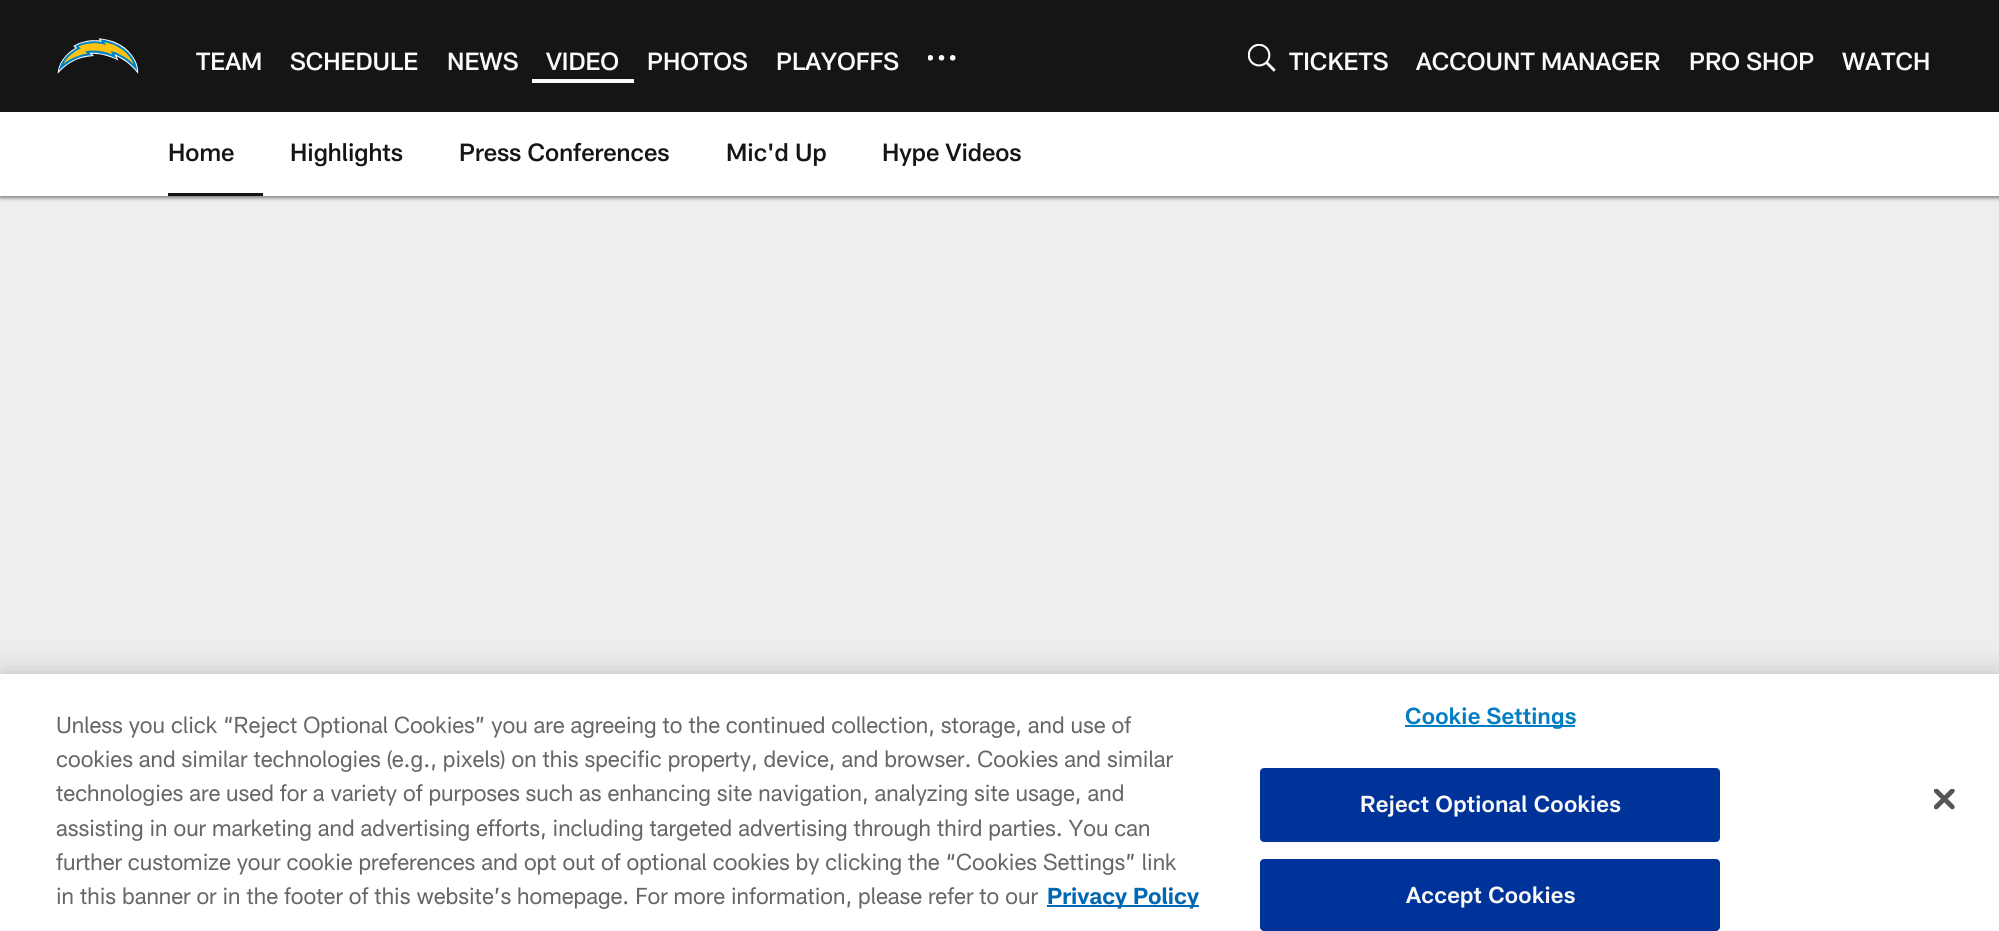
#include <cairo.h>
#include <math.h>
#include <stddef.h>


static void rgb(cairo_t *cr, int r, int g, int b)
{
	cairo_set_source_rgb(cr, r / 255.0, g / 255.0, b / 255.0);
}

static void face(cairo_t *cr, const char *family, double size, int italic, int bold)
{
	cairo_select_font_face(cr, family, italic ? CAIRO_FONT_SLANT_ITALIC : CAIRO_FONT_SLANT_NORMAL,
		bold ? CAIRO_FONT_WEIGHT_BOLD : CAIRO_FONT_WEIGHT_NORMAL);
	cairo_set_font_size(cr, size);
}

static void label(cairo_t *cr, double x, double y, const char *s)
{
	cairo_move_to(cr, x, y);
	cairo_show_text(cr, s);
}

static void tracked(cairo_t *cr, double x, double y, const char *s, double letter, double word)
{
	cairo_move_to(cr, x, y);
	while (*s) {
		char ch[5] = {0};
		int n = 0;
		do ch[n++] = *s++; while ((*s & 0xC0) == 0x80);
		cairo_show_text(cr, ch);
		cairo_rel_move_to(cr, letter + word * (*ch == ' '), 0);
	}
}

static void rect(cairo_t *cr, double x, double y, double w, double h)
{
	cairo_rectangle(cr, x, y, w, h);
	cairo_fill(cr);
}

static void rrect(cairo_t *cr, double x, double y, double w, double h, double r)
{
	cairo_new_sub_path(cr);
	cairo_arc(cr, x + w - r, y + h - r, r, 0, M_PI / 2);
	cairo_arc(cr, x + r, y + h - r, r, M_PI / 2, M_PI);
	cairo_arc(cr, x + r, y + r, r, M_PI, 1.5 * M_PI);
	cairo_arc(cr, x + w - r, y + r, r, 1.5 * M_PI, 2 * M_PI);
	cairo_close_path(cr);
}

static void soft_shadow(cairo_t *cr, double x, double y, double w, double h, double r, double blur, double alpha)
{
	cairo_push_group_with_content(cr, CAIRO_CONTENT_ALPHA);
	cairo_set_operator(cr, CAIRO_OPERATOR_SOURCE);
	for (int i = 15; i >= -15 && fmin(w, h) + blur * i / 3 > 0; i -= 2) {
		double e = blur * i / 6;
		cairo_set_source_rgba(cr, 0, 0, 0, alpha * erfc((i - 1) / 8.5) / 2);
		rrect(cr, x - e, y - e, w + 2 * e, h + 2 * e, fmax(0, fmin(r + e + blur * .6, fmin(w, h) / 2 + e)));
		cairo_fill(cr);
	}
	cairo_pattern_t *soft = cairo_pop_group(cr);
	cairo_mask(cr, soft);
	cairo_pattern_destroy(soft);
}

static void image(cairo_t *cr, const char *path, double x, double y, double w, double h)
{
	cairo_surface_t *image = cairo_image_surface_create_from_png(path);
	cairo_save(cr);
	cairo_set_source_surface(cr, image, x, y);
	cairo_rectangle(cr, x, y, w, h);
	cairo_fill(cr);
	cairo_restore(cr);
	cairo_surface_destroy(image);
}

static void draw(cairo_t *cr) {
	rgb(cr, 238, 238, 238);
	cairo_paint(cr);
	rgb(cr, 21, 21, 21);
	rect(cr, 0, 0, 1999, 112);
	image(cr, "image0.png", 57, 38, 82, 36);
	face(cr, "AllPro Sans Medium", 24.5, 0, 0);
	rgb(cr, 250, 250, 250);
	label(cr, 196, 70, "TEAM");
	label(cr, 290, 70, "SCHEDULE");
	label(cr, 447, 70, "NEWS");
	rect(cr, 532, 79, 102, 4);
	label(cr, 546, 70, "VIDEO");
	label(cr, 647, 70, "PHOTOS");
	label(cr, 776, 70, "PLAYOFFS");
	cairo_new_path(cr);
	cairo_arc(cr, 952.7, 57.8, 2.8, 0, 2 * M_PI);
	cairo_fill(cr);
	cairo_arc(cr, 941.5, 57.8, 2.8, 0, 2 * M_PI);
	cairo_fill(cr);
	cairo_save(cr);
	cairo_rectangle(cr, 928, 44, 28, 28);
	cairo_clip(cr);
	cairo_arc(cr, 930.3, 57.8, 2.8, 0, 2 * M_PI);
	cairo_fill(cr);
	cairo_restore(cr);
	image(cr, "image1.png", 1248, 44, 28, 28);
	label(cr, 1289, 70, "TICKETS");
	label(cr, 1416, 70, "ACCOUNT MANAGER");
	label(cr, 1689, 70, "PRO SHOP");
	label(cr, 1842, 70, "WATCH");
	rgb(cr, 0, 0, 0);
	soft_shadow(cr, 0, 114, 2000, 84, 0, 2, 0.47);
	rgb(cr, 255, 255, 255);
	rect(cr, 0, 112, 1999, 84);
	rgb(cr, 21, 21, 21);
	rect(cr, 168, 193, 95, 3);
	label(cr, 168, 161, "Home");
	label(cr, 290, 161, "Highlights");
	label(cr, 459, 161, "Press Conferences");
	label(cr, 726, 161, "Mic'd Up");
	label(cr, 882, 161, "Hype Videos");
	rgb(cr, 0, 0, 0);
	soft_shadow(cr, 0, 674, 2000, 257, 0, 16, 0.2);
	rgb(cr, 255, 255, 255);
	rect(cr, 0, 674, 1999, 257);
	face(cr, "AllPro Sans", 22.75, 0, 0);
	rgb(cr, 102, 102, 102);
	label(cr, 56, 733, "Unless you click “Reject Optional Cookies” you are agreeing to the continued collection, storage, and use of");
	label(cr, 56, 767, "cookies and similar technologies (e.g., pixels) on this specific property, device, and browser. Cookies and similar");
	label(cr, 56, 801, "technologies are used for a variety of purposes such as enhancing site navigation, analyzing site usage, and");
	label(cr, 56, 836, "assisting in our marketing and advertising efforts, including targeted advertising through third parties. You can");
	label(cr, 56, 870, "further customize your cookie preferences and opt out of optional cookies by clicking the “Cookies Settings” link");
	label(cr, 56, 904, "in this banner or in the footer of this website’s homepage. For more information, please refer to our");
	rgb(cr, 0, 103, 177);
	rect(cr, 1047, 905, 152, 2);
	face(cr, "AllPro Sans", 22.75, 0, 1);
	label(cr, 1047, 904, "Privacy Policy");
	rgb(cr, 0, 125, 195);
	rect(cr, 1405, 725, 170, 2);
	face(cr, "AllPro Sans SemiBold", 22.75, 0, 0);
	tracked(cr, 1405, 724, "Cookie Settings", 0.25, 0);
	rgb(cr, 0, 51, 153);
	rrect(cr, 1261, 769, 458, 72, 3);
	cairo_fill_preserve(cr);
	cairo_stroke(cr);
	rgb(cr, 250, 250, 250);
	tracked(cr, 1360, 812, "Reject Optional Cookies", 0.25, 0);
	rgb(cr, 0, 51, 153);
	rrect(cr, 1261, 860, 458, 70, 3);
	cairo_fill_preserve(cr);
	cairo_stroke(cr);
	rgb(cr, 250, 250, 250);
	tracked(cr, 1406, 903, "Accept Cookies", 0.25, 0);
	image(cr, "image2.png", 1934, 789, 21, 21);
}

int main(void) {
	cairo_surface_t *surface = cairo_image_surface_create(CAIRO_FORMAT_RGB24, 1999, 931);
	cairo_t *cr = cairo_create(surface);
	cairo_font_options_t *options = cairo_font_options_create();
	cairo_font_options_set_hint_metrics(options, CAIRO_HINT_METRICS_OFF);
	cairo_font_options_set_hint_style(options, CAIRO_HINT_STYLE_NONE);
	cairo_set_font_options(cr, options);
	cairo_set_miter_limit(cr, 4);
	draw(cr);
	cairo_surface_write_to_png(surface, "render.png");
	cairo_font_options_destroy(options);
	cairo_destroy(cr);
	cairo_surface_destroy(surface);
	return 0;
}
